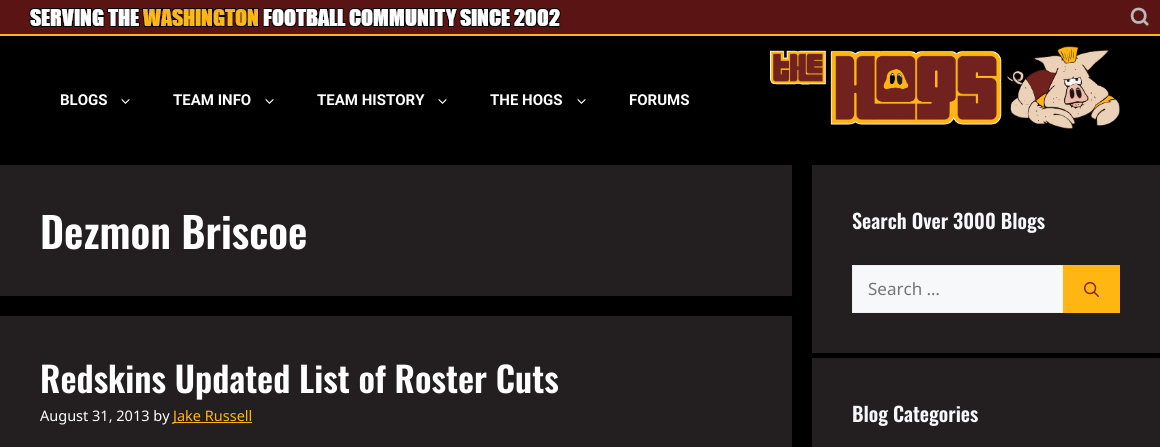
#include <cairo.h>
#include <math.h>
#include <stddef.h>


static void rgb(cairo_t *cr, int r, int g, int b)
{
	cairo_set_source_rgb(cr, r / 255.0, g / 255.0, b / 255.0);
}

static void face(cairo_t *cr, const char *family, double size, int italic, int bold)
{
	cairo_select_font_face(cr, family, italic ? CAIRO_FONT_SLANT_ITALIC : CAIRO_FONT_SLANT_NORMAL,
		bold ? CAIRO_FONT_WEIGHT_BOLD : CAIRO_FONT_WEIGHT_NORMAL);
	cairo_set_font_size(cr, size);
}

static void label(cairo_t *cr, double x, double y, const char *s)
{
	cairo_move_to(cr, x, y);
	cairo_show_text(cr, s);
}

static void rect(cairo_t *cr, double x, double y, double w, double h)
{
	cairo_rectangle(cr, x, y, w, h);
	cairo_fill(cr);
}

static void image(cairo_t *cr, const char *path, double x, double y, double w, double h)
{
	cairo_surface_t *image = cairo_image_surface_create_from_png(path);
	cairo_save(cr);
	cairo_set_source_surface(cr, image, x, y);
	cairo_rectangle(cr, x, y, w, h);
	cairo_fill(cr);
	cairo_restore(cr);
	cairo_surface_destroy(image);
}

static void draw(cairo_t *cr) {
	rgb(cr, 0, 0, 0);
	cairo_paint(cr);
	rgb(cr, 90, 20, 20);
	rect(cr, 0, 0, 1160, 34);
	image(cr, "image0.png", 29, 8, 532, 19);
	rgb(cr, 255, 182, 18);
	rect(cr, 0, 34, 1160, 2);
	cairo_new_path(cr);
	cairo_move_to(cr, 1142.5, 19.5);
	cairo_line_to(cr, 1148, 25);
	cairo_move_to(cr, 1138.5, 22.5);
	cairo_curve_to(cr, 1130, 22.5, 1130, 9, 1138.5, 9);
	cairo_curve_to(cr, 1147.5, 9, 1147.5, 22.5, 1138.5, 22.5);
	cairo_close_path(cr);
	rgb(cr, 186, 186, 186);
	cairo_set_line_width(cr, 2.7);
	cairo_stroke(cr);
	face(cr, "Roboto", 15, 0, 1);
	rgb(cr, 255, 255, 255);
	label(cr, 60, 105, "BLOGS");
	image(cr, "image1.png", 121, 99, 9, 5);
	label(cr, 173, 105, "TEAM INFO");
	image(cr, "image1.png", 265, 99, 9, 5);
	label(cr, 317, 105, "TEAM HISTORY");
	image(cr, "image1.png", 438, 99, 9, 5);
	label(cr, 490, 105, "THE HOGS");
	image(cr, "image1.png", 577, 99, 9, 5);
	label(cr, 629, 105, "FORUMS");
	image(cr, "image2.png", 770, 46, 350, 83);
	rgb(cr, 35, 31, 32);
	rect(cr, 0, 165, 792, 131);
	face(cr, "Oswald SemiBold", 42, 0, 0);
	rgb(cr, 255, 255, 255);
	label(cr, 40, 249, "Dezmon Briscoe");
	rgb(cr, 35, 31, 32);
	rect(cr, 0, 316, 792, 131);
	face(cr, "Oswald SemiBold", 35, 0, 0);
	rgb(cr, 255, 255, 255);
	label(cr, 40, 393, "Redskins Updated List of Roster Cuts");
	face(cr, "Noto Sans", 14.5, 0, 0);
	label(cr, 40, 421, "August 31, 2013 by");
	rgb(cr, 255, 182, 18);
	rect(cr, 173, 422, 79, 1);
	label(cr, 173, 421, "Jake Russell");
	rgb(cr, 35, 31, 32);
	rect(cr, 812, 165, 348, 188);
	face(cr, "Oswald SemiBold", 20, 0, 0);
	rgb(cr, 247, 248, 249);
	label(cr, 852, 229, "Search Over 3000 Blogs");
	cairo_rectangle(cr, 852.5, 265.5, 210, 47);
	cairo_fill_preserve(cr);
	rgb(cr, 240, 240, 240);
	cairo_set_line_width(cr, 1);
	cairo_stroke(cr);
	face(cr, "Noto Sans", 17, 0, 0);
	rgb(cr, 117, 117, 117);
	label(cr, 868, 295, "Search …");
	rgb(cr, 255, 182, 18);
	rect(cr, 1063, 265, 57, 48);
	image(cr, "image3.png", 1084, 282, 15, 15);
	rgb(cr, 35, 31, 32);
	rect(cr, 812, 358, 348, 89);
	face(cr, "Oswald SemiBold", 20, 0, 0);
	rgb(cr, 247, 248, 249);
	label(cr, 852, 422, "Blog Categories");
}

int main(void) {
	cairo_surface_t *surface = cairo_image_surface_create(CAIRO_FORMAT_RGB24, 1160, 447);
	cairo_t *cr = cairo_create(surface);
	cairo_font_options_t *options = cairo_font_options_create();
	cairo_font_options_set_hint_metrics(options, CAIRO_HINT_METRICS_OFF);
	cairo_font_options_set_hint_style(options, CAIRO_HINT_STYLE_NONE);
	cairo_set_font_options(cr, options);
	cairo_set_miter_limit(cr, 4);
	draw(cr);
	cairo_surface_write_to_png(surface, "render.png");
	cairo_font_options_destroy(options);
	cairo_destroy(cr);
	cairo_surface_destroy(surface);
	return 0;
}
